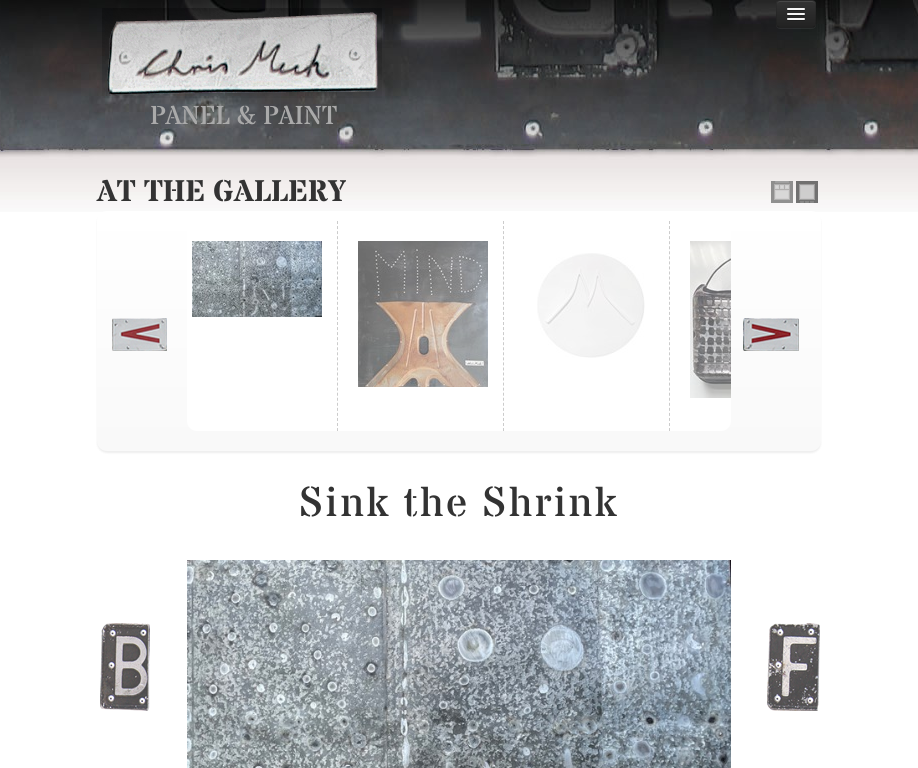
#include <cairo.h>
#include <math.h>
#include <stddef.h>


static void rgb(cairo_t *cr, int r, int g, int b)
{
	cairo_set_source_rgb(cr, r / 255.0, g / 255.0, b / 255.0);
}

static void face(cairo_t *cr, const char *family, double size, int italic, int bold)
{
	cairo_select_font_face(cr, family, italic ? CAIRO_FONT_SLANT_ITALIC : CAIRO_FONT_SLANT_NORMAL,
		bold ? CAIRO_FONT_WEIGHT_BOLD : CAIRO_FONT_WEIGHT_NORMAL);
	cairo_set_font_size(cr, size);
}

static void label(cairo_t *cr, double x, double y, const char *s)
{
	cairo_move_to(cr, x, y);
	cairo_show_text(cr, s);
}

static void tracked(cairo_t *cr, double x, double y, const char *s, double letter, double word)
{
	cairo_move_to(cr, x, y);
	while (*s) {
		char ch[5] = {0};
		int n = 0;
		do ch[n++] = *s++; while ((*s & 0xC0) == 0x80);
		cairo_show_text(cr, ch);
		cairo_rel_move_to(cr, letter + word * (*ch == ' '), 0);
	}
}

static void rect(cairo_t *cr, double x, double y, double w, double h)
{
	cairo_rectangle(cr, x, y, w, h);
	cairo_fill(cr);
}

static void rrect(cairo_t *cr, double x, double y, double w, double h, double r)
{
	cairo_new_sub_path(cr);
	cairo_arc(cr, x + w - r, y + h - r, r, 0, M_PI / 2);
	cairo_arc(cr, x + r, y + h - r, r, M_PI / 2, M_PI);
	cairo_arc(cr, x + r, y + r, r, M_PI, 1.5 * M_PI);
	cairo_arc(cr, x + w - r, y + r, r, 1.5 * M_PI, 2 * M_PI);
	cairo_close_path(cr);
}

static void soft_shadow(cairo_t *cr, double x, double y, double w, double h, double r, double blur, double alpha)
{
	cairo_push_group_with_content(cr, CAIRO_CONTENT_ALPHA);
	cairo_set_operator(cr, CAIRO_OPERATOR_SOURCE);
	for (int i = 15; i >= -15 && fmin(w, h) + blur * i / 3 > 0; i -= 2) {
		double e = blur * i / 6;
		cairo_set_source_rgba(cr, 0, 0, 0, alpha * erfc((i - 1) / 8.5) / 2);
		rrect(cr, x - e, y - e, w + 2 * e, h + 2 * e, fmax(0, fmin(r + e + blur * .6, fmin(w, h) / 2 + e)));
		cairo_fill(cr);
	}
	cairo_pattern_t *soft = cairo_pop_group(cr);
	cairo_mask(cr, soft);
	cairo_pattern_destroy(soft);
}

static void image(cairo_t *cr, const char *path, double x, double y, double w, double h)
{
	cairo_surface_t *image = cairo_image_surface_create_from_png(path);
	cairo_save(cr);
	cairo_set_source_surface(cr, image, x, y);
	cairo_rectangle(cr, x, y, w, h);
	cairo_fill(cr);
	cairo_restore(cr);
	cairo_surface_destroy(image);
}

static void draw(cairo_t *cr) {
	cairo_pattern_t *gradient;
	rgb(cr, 255, 255, 255);
	cairo_paint(cr);
	image(cr, "image0.png", 0, 0, 918, 212);
	cairo_set_source_rgba(cr, 1, 1, 1, 0.07);
	cairo_new_path(cr);
	cairo_move_to(cr, 776, 24);
	cairo_curve_to(cr, 776, 30, 781, 29, 785, 29);
	cairo_line_to(cr, 807, 29);
	cairo_curve_to(cr, 811, 29, 816, 30, 816, 24);
	cairo_curve_to(cr, 816, 26, 814, 28, 812, 28);
	cairo_line_to(cr, 780, 28);
	cairo_curve_to(cr, 778, 28, 776, 26, 776, 24);
	cairo_close_path(cr);
	cairo_fill(cr);
	rgb(cr, 44, 44, 44);
	rrect(cr, 776, 0, 40, 28, 4);
	cairo_fill(cr);
	cairo_save(cr);
	rrect(cr, 776, 0, 40, 28, 4);
	cairo_clip(cr);
	gradient = cairo_pattern_create_linear(796, 1, 796, 27);
	cairo_pattern_add_color_stop_rgba(gradient, 0, 0.2, 0.2, 0.2, 1);
	cairo_pattern_add_color_stop_rgba(gradient, 1, 0.133, 0.133, 0.133, 1);
	cairo_set_source(cr, gradient);
	cairo_pattern_destroy(gradient);
	rect(cr, 776, 1, 40, 26);
	cairo_restore(cr);
	rgb(cr, 71, 71, 71);
	cairo_new_path(cr);
	cairo_move_to(cr, 780, 2);
	cairo_line_to(cr, 812, 2);
	cairo_curve_to(cr, 814, 2, 815, 3, 815, 5);
	cairo_curve_to(cr, 815, 0, 811, 1, 806.5, 1);
	cairo_line_to(cr, 785.5, 1);
	cairo_curve_to(cr, 781, 1, 777, 0, 777, 5);
	cairo_curve_to(cr, 777, 3, 778, 2, 780, 2);
	cairo_close_path(cr);
	cairo_fill(cr);
	cairo_new_path(cr);
	cairo_move_to(cr, 814.5, 26.5);
	cairo_curve_to(cr, 814, 27, 813, 27.5, 812, 27.5);
	cairo_line_to(cr, 780, 27.5);
	cairo_curve_to(cr, 779, 27.5, 778, 27, 777.5, 26.5);
	cairo_set_source_rgba(cr, 0, 0, 0, 0.25);
	cairo_set_line_width(cr, 1);
	cairo_stroke(cr);
	cairo_new_path(cr);
	cairo_move_to(cr, 777.5, 26.5);
	cairo_curve_to(cr, 777, 26, 776.5, 25, 776.5, 24);
	cairo_line_to(cr, 776.5, 4);
	cairo_curve_to(cr, 776.5, 3, 777, 2, 777.5, 1.5);
	cairo_curve_to(cr, 778, 1, 779, 0.5, 780, 0.5);
	cairo_line_to(cr, 812, 0.5);
	cairo_curve_to(cr, 813, 0.5, 814, 1, 814.5, 1.5);
	cairo_curve_to(cr, 815, 2, 815.5, 3, 815.5, 4);
	cairo_line_to(cr, 815.5, 24);
	cairo_curve_to(cr, 815.5, 25, 815, 26, 814.5, 26.5);
	cairo_set_source_rgba(cr, 0, 0, 0, 0.1);
	cairo_stroke(cr);
	rgb(cr, 34, 34, 34);
	cairo_new_path(cr);
	cairo_move_to(cr, 787, 9.5);
	cairo_curve_to(cr, 786, 11.5, 790.5, 11, 790.5, 11);
	cairo_line_to(cr, 801.5, 11);
	cairo_curve_to(cr, 801.5, 11, 806, 11.5, 805, 9.5);
	cairo_curve_to(cr, 804, 10.5, 797.5, 10, 796, 10);
	cairo_curve_to(cr, 794.5, 10, 788, 10.5, 787, 9.5);
	cairo_close_path(cr);
	cairo_fill(cr);
	rgb(cr, 245, 245, 245);
	rrect(cr, 787, 8, 18, 2, 1);
	cairo_fill(cr);
	rgb(cr, 32, 32, 32);
	cairo_new_path(cr);
	cairo_move_to(cr, 787, 14.5);
	cairo_curve_to(cr, 786, 16.5, 790.5, 16, 790.5, 16);
	cairo_line_to(cr, 801.5, 16);
	cairo_curve_to(cr, 801.5, 16, 806, 16.5, 805, 14.5);
	cairo_curve_to(cr, 804, 15.5, 797.5, 15, 796, 15);
	cairo_curve_to(cr, 794.5, 15, 788, 15.5, 787, 14.5);
	cairo_close_path(cr);
	cairo_fill(cr);
	rgb(cr, 245, 245, 245);
	rrect(cr, 787, 13, 18, 2, 1);
	cairo_fill(cr);
	rgb(cr, 29, 29, 29);
	cairo_new_path(cr);
	cairo_move_to(cr, 787, 19.5);
	cairo_curve_to(cr, 786, 21.5, 790.5, 21, 790.5, 21);
	cairo_line_to(cr, 801.5, 21);
	cairo_curve_to(cr, 801.5, 21, 806, 21.5, 805, 19.5);
	cairo_curve_to(cr, 804, 20.5, 797.5, 20, 796, 20);
	cairo_curve_to(cr, 794.5, 20, 788, 20.5, 787, 19.5);
	cairo_close_path(cr);
	cairo_fill(cr);
	rgb(cr, 245, 245, 245);
	rrect(cr, 787, 18, 18, 2, 1);
	cairo_fill(cr);
	image(cr, "image1.png", 102, 8, 280, 90);
	face(cr, "Stardos Stencil", 26, 0, 0);
	rgb(cr, 170, 170, 170);
	label(cr, 150, 124, "PANEL & PAINT");
	face(cr, "Stardos Stencil", 30, 0, 1);
	rgb(cr, 51, 51, 51);
	label(cr, 97, 201, "AT THE GALLERY");
	cairo_set_source_rgba(cr, 0.435, 0.435, 0.435, 0.5);
	rect(cr, 771, 181, 22, 22);
	image(cr, "image2.png", 775, 181, 14, 18);
	cairo_rectangle(cr, 772.5, 182.5, 19, 19);
	cairo_set_line_width(cr, 3);
	cairo_stroke(cr);
	cairo_set_source_rgba(cr, 0.275, 0.275, 0.275, 0.5);
	rect(cr, 796, 181, 22, 22);
	image(cr, "image3.png", 800, 185, 14, 18);
	cairo_rectangle(cr, 797.5, 182.5, 19, 19);
	cairo_stroke(cr);
	rgb(cr, 0, 0, 0);
	soft_shadow(cr, 97, 213, 724, 240, 10, 1, 0.07);
	gradient = cairo_pattern_create_linear(97, 211, 97, 451);
	cairo_pattern_add_color_stop_rgba(gradient, 0, 1, 1, 1, 1);
	cairo_pattern_add_color_stop_rgba(gradient, 1, 0.976, 0.976, 0.976, 1);
	cairo_set_source(cr, gradient);
	cairo_pattern_destroy(gradient);
	rrect(cr, 97, 211, 724, 240, 10);
	cairo_fill(cr);
	rgb(cr, 255, 255, 255);
	rrect(cr, 187, 221, 544, 210, 10);
	cairo_fill(cr);
	cairo_new_path(cr);
	cairo_move_to(cr, 337.5, 221);
	cairo_line_to(cr, 337.5, 431);
	rgb(cr, 204, 204, 204);
	cairo_set_line_width(cr, 1);
	cairo_set_dash(cr, (double[]){3, 2.05}, 2, 0);
	cairo_stroke(cr);
	image(cr, "image4.png", 192, 241, 130, 76);
	cairo_new_path(cr);
	cairo_move_to(cr, 503.5, 221);
	cairo_line_to(cr, 503.5, 431);
	cairo_stroke(cr);
	image(cr, "image5.png", 358, 241, 130, 146);
	cairo_new_path(cr);
	cairo_move_to(cr, 669.5, 221);
	cairo_line_to(cr, 669.5, 431);
	cairo_stroke(cr);
	image(cr, "image6.png", 537, 253, 108, 105);
	image(cr, "image7.png", 690, 241, 41, 157);
	image(cr, "image8.png", 112, 318, 55, 33);
	image(cr, "image9.png", 743, 318, 56, 33);
	image(cr, "image10.png", 743, 318, 56, 33);
	face(cr, "Stardos Stencil", 42, 0, 0);
	rgb(cr, 51, 51, 51);
	tracked(cr, 299, 516, "Sink the Shrink", 2, 0);
	image(cr, "image11.png", 187, 560, 544, 208);
	image(cr, "image12.png", 100, 623, 50, 88);
	image(cr, "image13.png", 767, 623, 53, 88);
}

int main(void) {
	cairo_surface_t *surface = cairo_image_surface_create(CAIRO_FORMAT_RGB24, 918, 768);
	cairo_t *cr = cairo_create(surface);
	cairo_font_options_t *options = cairo_font_options_create();
	cairo_font_options_set_hint_metrics(options, CAIRO_HINT_METRICS_OFF);
	cairo_font_options_set_hint_style(options, CAIRO_HINT_STYLE_NONE);
	cairo_set_font_options(cr, options);
	cairo_set_miter_limit(cr, 4);
	draw(cr);
	cairo_surface_write_to_png(surface, "render.png");
	cairo_font_options_destroy(options);
	cairo_destroy(cr);
	cairo_surface_destroy(surface);
	return 0;
}
